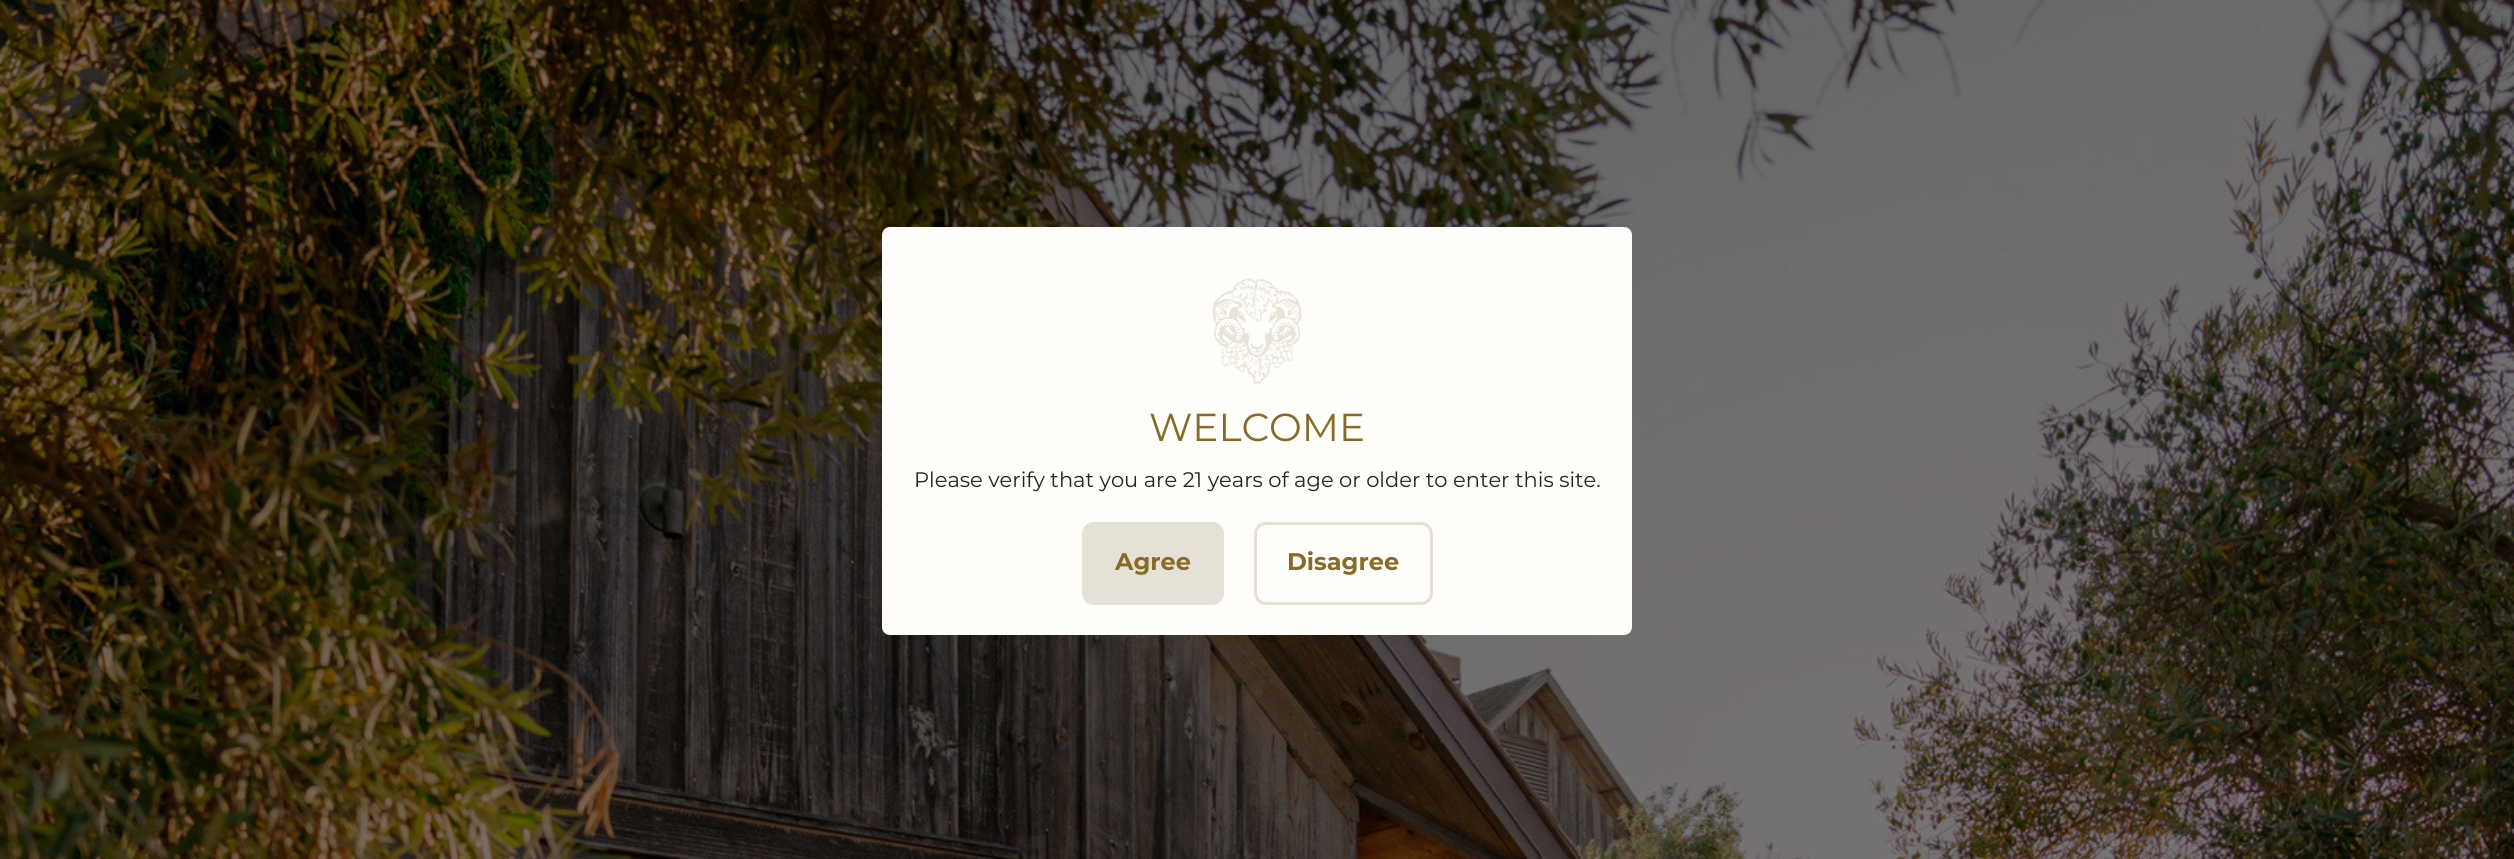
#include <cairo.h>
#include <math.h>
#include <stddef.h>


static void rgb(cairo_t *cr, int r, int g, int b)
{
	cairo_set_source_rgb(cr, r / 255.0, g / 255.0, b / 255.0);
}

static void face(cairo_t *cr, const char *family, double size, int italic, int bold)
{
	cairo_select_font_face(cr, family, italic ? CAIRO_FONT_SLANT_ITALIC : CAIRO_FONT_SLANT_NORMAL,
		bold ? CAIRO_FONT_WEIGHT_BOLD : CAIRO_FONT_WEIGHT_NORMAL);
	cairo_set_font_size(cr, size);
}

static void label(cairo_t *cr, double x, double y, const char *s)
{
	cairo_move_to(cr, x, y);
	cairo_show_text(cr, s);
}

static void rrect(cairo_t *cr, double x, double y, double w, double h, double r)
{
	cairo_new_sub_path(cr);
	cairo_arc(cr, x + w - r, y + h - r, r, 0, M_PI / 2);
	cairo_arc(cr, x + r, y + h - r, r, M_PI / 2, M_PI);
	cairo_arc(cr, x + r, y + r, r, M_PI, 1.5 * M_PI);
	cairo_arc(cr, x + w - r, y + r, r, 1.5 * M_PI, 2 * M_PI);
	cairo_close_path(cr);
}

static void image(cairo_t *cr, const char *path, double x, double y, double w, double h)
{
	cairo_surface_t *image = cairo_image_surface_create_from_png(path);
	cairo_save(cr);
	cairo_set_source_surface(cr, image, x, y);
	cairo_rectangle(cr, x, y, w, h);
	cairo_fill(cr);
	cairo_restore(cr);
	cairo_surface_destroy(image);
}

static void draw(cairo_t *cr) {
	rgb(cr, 255, 255, 255);
	cairo_paint(cr);
	image(cr, "image0.png", 0, 0, 2514, 859);
	rgb(cr, 255, 254, 250);
	rrect(cr, 882, 227, 750, 408, 8);
	cairo_fill(cr);
	image(cr, "image1.png", 1212, 278, 90, 107);
	face(cr, "Montserrat", 39, 0, 0);
	rgb(cr, 136, 107, 37);
	label(cr, 1149, 441, "WELCOME");
	face(cr, "Montserrat", 21, 0, 0);
	rgb(cr, 36, 36, 36);
	label(cr, 914, 487, "Please verify that you are 21 years of age or older to enter this site.");
	rgb(cr, 229, 225, 214);
	rrect(cr, 1083.5, 523.5, 139, 80, 10.5);
	cairo_fill_preserve(cr);
	cairo_set_line_width(cr, 3);
	cairo_stroke(cr);
	face(cr, "Montserrat", 24, 0, 1);
	rgb(cr, 136, 107, 37);
	label(cr, 1115, 570, "Agree");
	rrect(cr, 1255.5, 523.5, 176, 80, 10.5);
	rgb(cr, 229, 225, 214);
	cairo_stroke(cr);
	rgb(cr, 136, 107, 37);
	label(cr, 1287, 570, "Disagree");
}

int main(void) {
	cairo_surface_t *surface = cairo_image_surface_create(CAIRO_FORMAT_RGB24, 2514, 859);
	cairo_t *cr = cairo_create(surface);
	cairo_font_options_t *options = cairo_font_options_create();
	cairo_font_options_set_hint_metrics(options, CAIRO_HINT_METRICS_OFF);
	cairo_font_options_set_hint_style(options, CAIRO_HINT_STYLE_NONE);
	cairo_set_font_options(cr, options);
	cairo_set_miter_limit(cr, 4);
	draw(cr);
	cairo_surface_write_to_png(surface, "render.png");
	cairo_font_options_destroy(options);
	cairo_destroy(cr);
	cairo_surface_destroy(surface);
	return 0;
}
